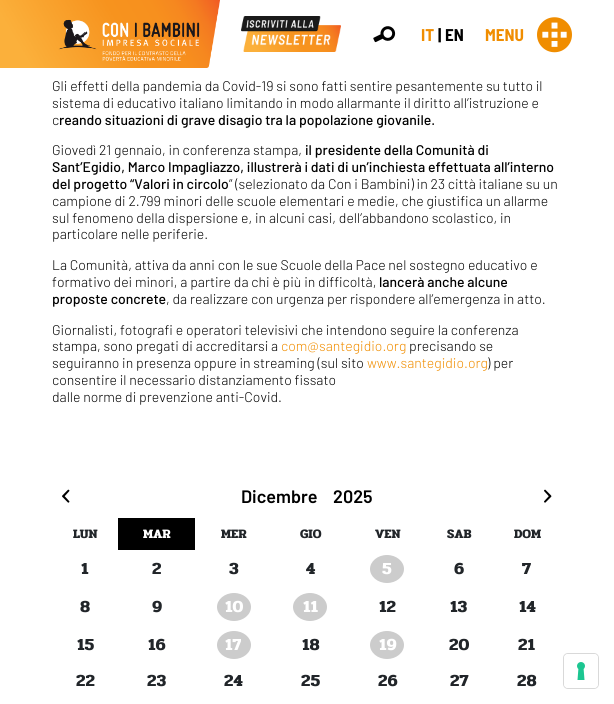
#include <cairo.h>
#include <math.h>
#include <stddef.h>


static void rgb(cairo_t *cr, int r, int g, int b)
{
	cairo_set_source_rgb(cr, r / 255.0, g / 255.0, b / 255.0);
}

static void face(cairo_t *cr, const char *family, double size, int italic, int bold)
{
	cairo_select_font_face(cr, family, italic ? CAIRO_FONT_SLANT_ITALIC : CAIRO_FONT_SLANT_NORMAL,
		bold ? CAIRO_FONT_WEIGHT_BOLD : CAIRO_FONT_WEIGHT_NORMAL);
	cairo_set_font_size(cr, size);
}

static void label(cairo_t *cr, double x, double y, const char *s)
{
	cairo_move_to(cr, x, y);
	cairo_show_text(cr, s);
}

static void rect(cairo_t *cr, double x, double y, double w, double h)
{
	cairo_rectangle(cr, x, y, w, h);
	cairo_fill(cr);
}

static void rrect(cairo_t *cr, double x, double y, double w, double h, double r)
{
	cairo_new_sub_path(cr);
	cairo_arc(cr, x + w - r, y + h - r, r, 0, M_PI / 2);
	cairo_arc(cr, x + r, y + h - r, r, M_PI / 2, M_PI);
	cairo_arc(cr, x + r, y + r, r, M_PI, 1.5 * M_PI);
	cairo_arc(cr, x + w - r, y + r, r, 1.5 * M_PI, 2 * M_PI);
	cairo_close_path(cr);
}

static void image(cairo_t *cr, const char *path, double x, double y, double w, double h)
{
	cairo_surface_t *image = cairo_image_surface_create_from_png(path);
	cairo_save(cr);
	cairo_set_source_surface(cr, image, x, y);
	cairo_rectangle(cr, x, y, w, h);
	cairo_fill(cr);
	cairo_restore(cr);
	cairo_surface_destroy(image);
}

static void draw(cairo_t *cr) {
	rgb(cr, 255, 255, 255);
	cairo_paint(cr);
	image(cr, "image0.png", 0, 0, 220, 68);
	image(cr, "image1.png", 241, 16, 100, 36);
	image(cr, "image2.png", 373, 26, 23, 17);
	face(cr, "Barlow Semi Condensed", 17, 0, 1);
	rgb(cr, 240, 141, 0);
	label(cr, 421, 41, "IT");
	rgb(cr, 0, 0, 0);
	label(cr, 438, 41, "|");
	label(cr, 445, 41, "EN");
	rgb(cr, 240, 141, 0);
	label(cr, 485, 41, "MENU");
	image(cr, "image3.png", 537, 17, 35, 36);
	face(cr, "Barlow Light", 14, 0, 0);
	rgb(cr, 0, 0, 0);
	label(cr, 52, 91, "Gli effetti della pandemia da Covid-19 si sono fatti sentire pesantemente su tutto il");
	label(cr, 52, 108, "sistema di educativo italiano limitando in modo allarmante il diritto all’istruzione e");
	label(cr, 52, 125, "c");
	face(cr, "Barlow Medium", 14, 0, 0);
	label(cr, 59, 125, "reando situazioni di grave disagio tra la popolazione giovanile.");
	face(cr, "Barlow Light", 14, 0, 0);
	label(cr, 52, 155, "Giovedì 21 gennaio, in conferenza stampa,");
	face(cr, "Barlow Medium", 14, 0, 0);
	label(cr, 305, 155, "il presidente della Comunità di");
	label(cr, 52, 172, "Sant’Egidio, Marco Impagliazzo, illustrerà i dati di un’inchiesta effettuata all’interno");
	label(cr, 52, 189, "del progetto “Valori in circolo");
	face(cr, "Barlow Light", 14, 0, 0);
	label(cr, 229, 189, "” (selezionato da Con i Bambini) in 23 città italiane su un");
	label(cr, 52, 206, "campione di 2.799 minori delle scuole elementari e medie, che giustifica un allarme");
	label(cr, 52, 223, "sul fenomeno della dispersione e, in alcuni casi, dell’abbandono scolastico, in");
	label(cr, 52, 239, "particolare nelle periferie.");
	label(cr, 52, 270, "La Comunità, attiva da anni con le sue Scuole della Pace nel sostegno educativo e");
	label(cr, 52, 287, "formativo dei minori, a partire da chi è più in difficoltà,");
	face(cr, "Barlow Medium", 14, 0, 0);
	label(cr, 379, 287, "lancerà anche alcune");
	label(cr, 52, 304, "proposte concrete");
	face(cr, "Barlow Light", 14, 0, 0);
	label(cr, 166, 304, ", da realizzare con urgenza per rispondere all’emergenza in atto.");
	label(cr, 52, 335, "Giornalisti, fotografi e operatori televisivi che intendono seguire la conferenza");
	label(cr, 52, 351, "stampa, sono pregati di accreditarsi a");
	rgb(cr, 240, 141, 0);
	label(cr, 281, 351, "com@santegidio.org");
	rgb(cr, 0, 0, 0);
	label(cr, 409, 351, "precisando se");
	label(cr, 52, 368, "seguiranno in presenza oppure in streaming (sul sito");
	rgb(cr, 240, 141, 0);
	label(cr, 367, 368, "www.santegidio.org");
	rgb(cr, 0, 0, 0);
	label(cr, 487, 368, ") per");
	label(cr, 52, 385, "consentire il necessario distanziamento fissato");
	label(cr, 52, 402, "dalle norme di prevenzione anti-Covid.");
	image(cr, "image4.png", 62, 489, 8, 14);
	face(cr, "Barlow SemiBold", 18, 0, 0);
	label(cr, 241, 503, "Dicembre");
	label(cr, 333, 503, "2025");
	image(cr, "image5.png", 544, 489, 8, 14);
	face(cr, "Pridi", 13, 0, 1);
	rgb(cr, 33, 37, 41);
	label(cr, 73, 538, "LUN");
	rgb(cr, 0, 0, 0);
	rect(cr, 118, 518, 77, 32);
	rgb(cr, 255, 255, 255);
	label(cr, 143, 538, "MAR");
	rgb(cr, 33, 37, 41);
	label(cr, 221, 538, "MER");
	label(cr, 300, 538, "GIO");
	label(cr, 375, 538, "VEN");
	label(cr, 447, 538, "SAB");
	label(cr, 514, 538, "DOM");
	face(cr, "Pridi", 17, 0, 1);
	label(cr, 81, 574, "1");
	label(cr, 152, 574, "2");
	label(cr, 229, 574, "3");
	label(cr, 306, 574, "4");
	rgb(cr, 204, 204, 204);
	cairo_new_path(cr);
	cairo_move_to(cr, 387, 555);
	cairo_curve_to(cr, 396.5, 555, 404, 561.5, 404, 569);
	cairo_curve_to(cr, 404, 576.5, 396.5, 583, 387, 583);
	cairo_curve_to(cr, 377.5, 583, 370, 576.5, 370, 569);
	cairo_curve_to(cr, 370, 561.5, 377.5, 555, 387, 555);
	cairo_close_path(cr);
	cairo_fill(cr);
	rgb(cr, 255, 255, 255);
	label(cr, 382, 574, "5");
	rgb(cr, 33, 37, 41);
	label(cr, 454, 574, "6");
	label(cr, 522, 574, "7");
	label(cr, 80, 612, "8");
	label(cr, 152, 612, "9");
	rgb(cr, 204, 204, 204);
	cairo_new_path(cr);
	cairo_move_to(cr, 234, 593);
	cairo_curve_to(cr, 243.5, 593, 251, 599.5, 251, 607);
	cairo_curve_to(cr, 251, 614.5, 243.5, 621, 234, 621);
	cairo_curve_to(cr, 224.5, 621, 217, 614.5, 217, 607);
	cairo_curve_to(cr, 217, 599.5, 224.5, 593, 234, 593);
	cairo_close_path(cr);
	cairo_fill(cr);
	rgb(cr, 255, 255, 255);
	label(cr, 225, 612, "10");
	rgb(cr, 204, 204, 204);
	cairo_new_path(cr);
	cairo_move_to(cr, 310, 593);
	cairo_curve_to(cr, 319.5, 593, 327, 599.5, 327, 607);
	cairo_curve_to(cr, 327, 614.5, 319.5, 621, 310, 621);
	cairo_curve_to(cr, 300.5, 621, 293, 614.5, 293, 607);
	cairo_curve_to(cr, 293, 599.5, 300.5, 593, 310, 593);
	cairo_close_path(cr);
	cairo_fill(cr);
	rgb(cr, 255, 255, 255);
	label(cr, 303, 612, "11");
	rgb(cr, 33, 37, 41);
	label(cr, 379, 612, "12");
	label(cr, 450, 612, "13");
	label(cr, 519, 612, "14");
	label(cr, 77, 650, "15");
	label(cr, 148, 650, "16");
	rgb(cr, 204, 204, 204);
	cairo_new_path(cr);
	cairo_move_to(cr, 234, 631);
	cairo_curve_to(cr, 243.5, 631, 251, 637.5, 251, 645);
	cairo_curve_to(cr, 251, 652.5, 243.5, 659, 234, 659);
	cairo_curve_to(cr, 224.5, 659, 217, 652.5, 217, 645);
	cairo_curve_to(cr, 217, 637.5, 224.5, 631, 234, 631);
	cairo_close_path(cr);
	cairo_fill(cr);
	rgb(cr, 255, 255, 255);
	label(cr, 225, 650, "17");
	rgb(cr, 33, 37, 41);
	label(cr, 302, 650, "18");
	rgb(cr, 204, 204, 204);
	cairo_new_path(cr);
	cairo_move_to(cr, 387, 631);
	cairo_curve_to(cr, 396.5, 631, 404, 637.5, 404, 645);
	cairo_curve_to(cr, 404, 652.5, 396.5, 659, 387, 659);
	cairo_curve_to(cr, 377.5, 659, 370, 652.5, 370, 645);
	cairo_curve_to(cr, 370, 637.5, 377.5, 631, 387, 631);
	cairo_close_path(cr);
	cairo_fill(cr);
	rgb(cr, 255, 255, 255);
	label(cr, 379, 650, "19");
	rgb(cr, 33, 37, 41);
	label(cr, 449, 650, "20");
	label(cr, 518, 650, "21");
	label(cr, 76, 686, "22");
	label(cr, 147, 686, "23");
	label(cr, 224, 686, "24");
	label(cr, 301, 686, "25");
	label(cr, 378, 686, "26");
	label(cr, 450, 686, "27");
	label(cr, 517, 686, "28");
	rrect(cr, 563.5, 653.5, 35, 35, 4.5);
	rgb(cr, 217, 217, 217);
	cairo_set_line_width(cr, 1);
	cairo_stroke(cr);
	rgb(cr, 255, 255, 255);
	rrect(cr, 564, 654, 34, 34, 4);
	cairo_fill(cr);
	image(cr, "image6.png", 577, 662, 8, 18);
}

int main(void) {
	cairo_surface_t *surface = cairo_image_surface_create(CAIRO_FORMAT_RGB24, 614, 704);
	cairo_t *cr = cairo_create(surface);
	cairo_font_options_t *options = cairo_font_options_create();
	cairo_font_options_set_hint_metrics(options, CAIRO_HINT_METRICS_OFF);
	cairo_font_options_set_hint_style(options, CAIRO_HINT_STYLE_NONE);
	cairo_set_font_options(cr, options);
	cairo_set_miter_limit(cr, 4);
	draw(cr);
	cairo_surface_write_to_png(surface, "render.png");
	cairo_font_options_destroy(options);
	cairo_destroy(cr);
	cairo_surface_destroy(surface);
	return 0;
}
